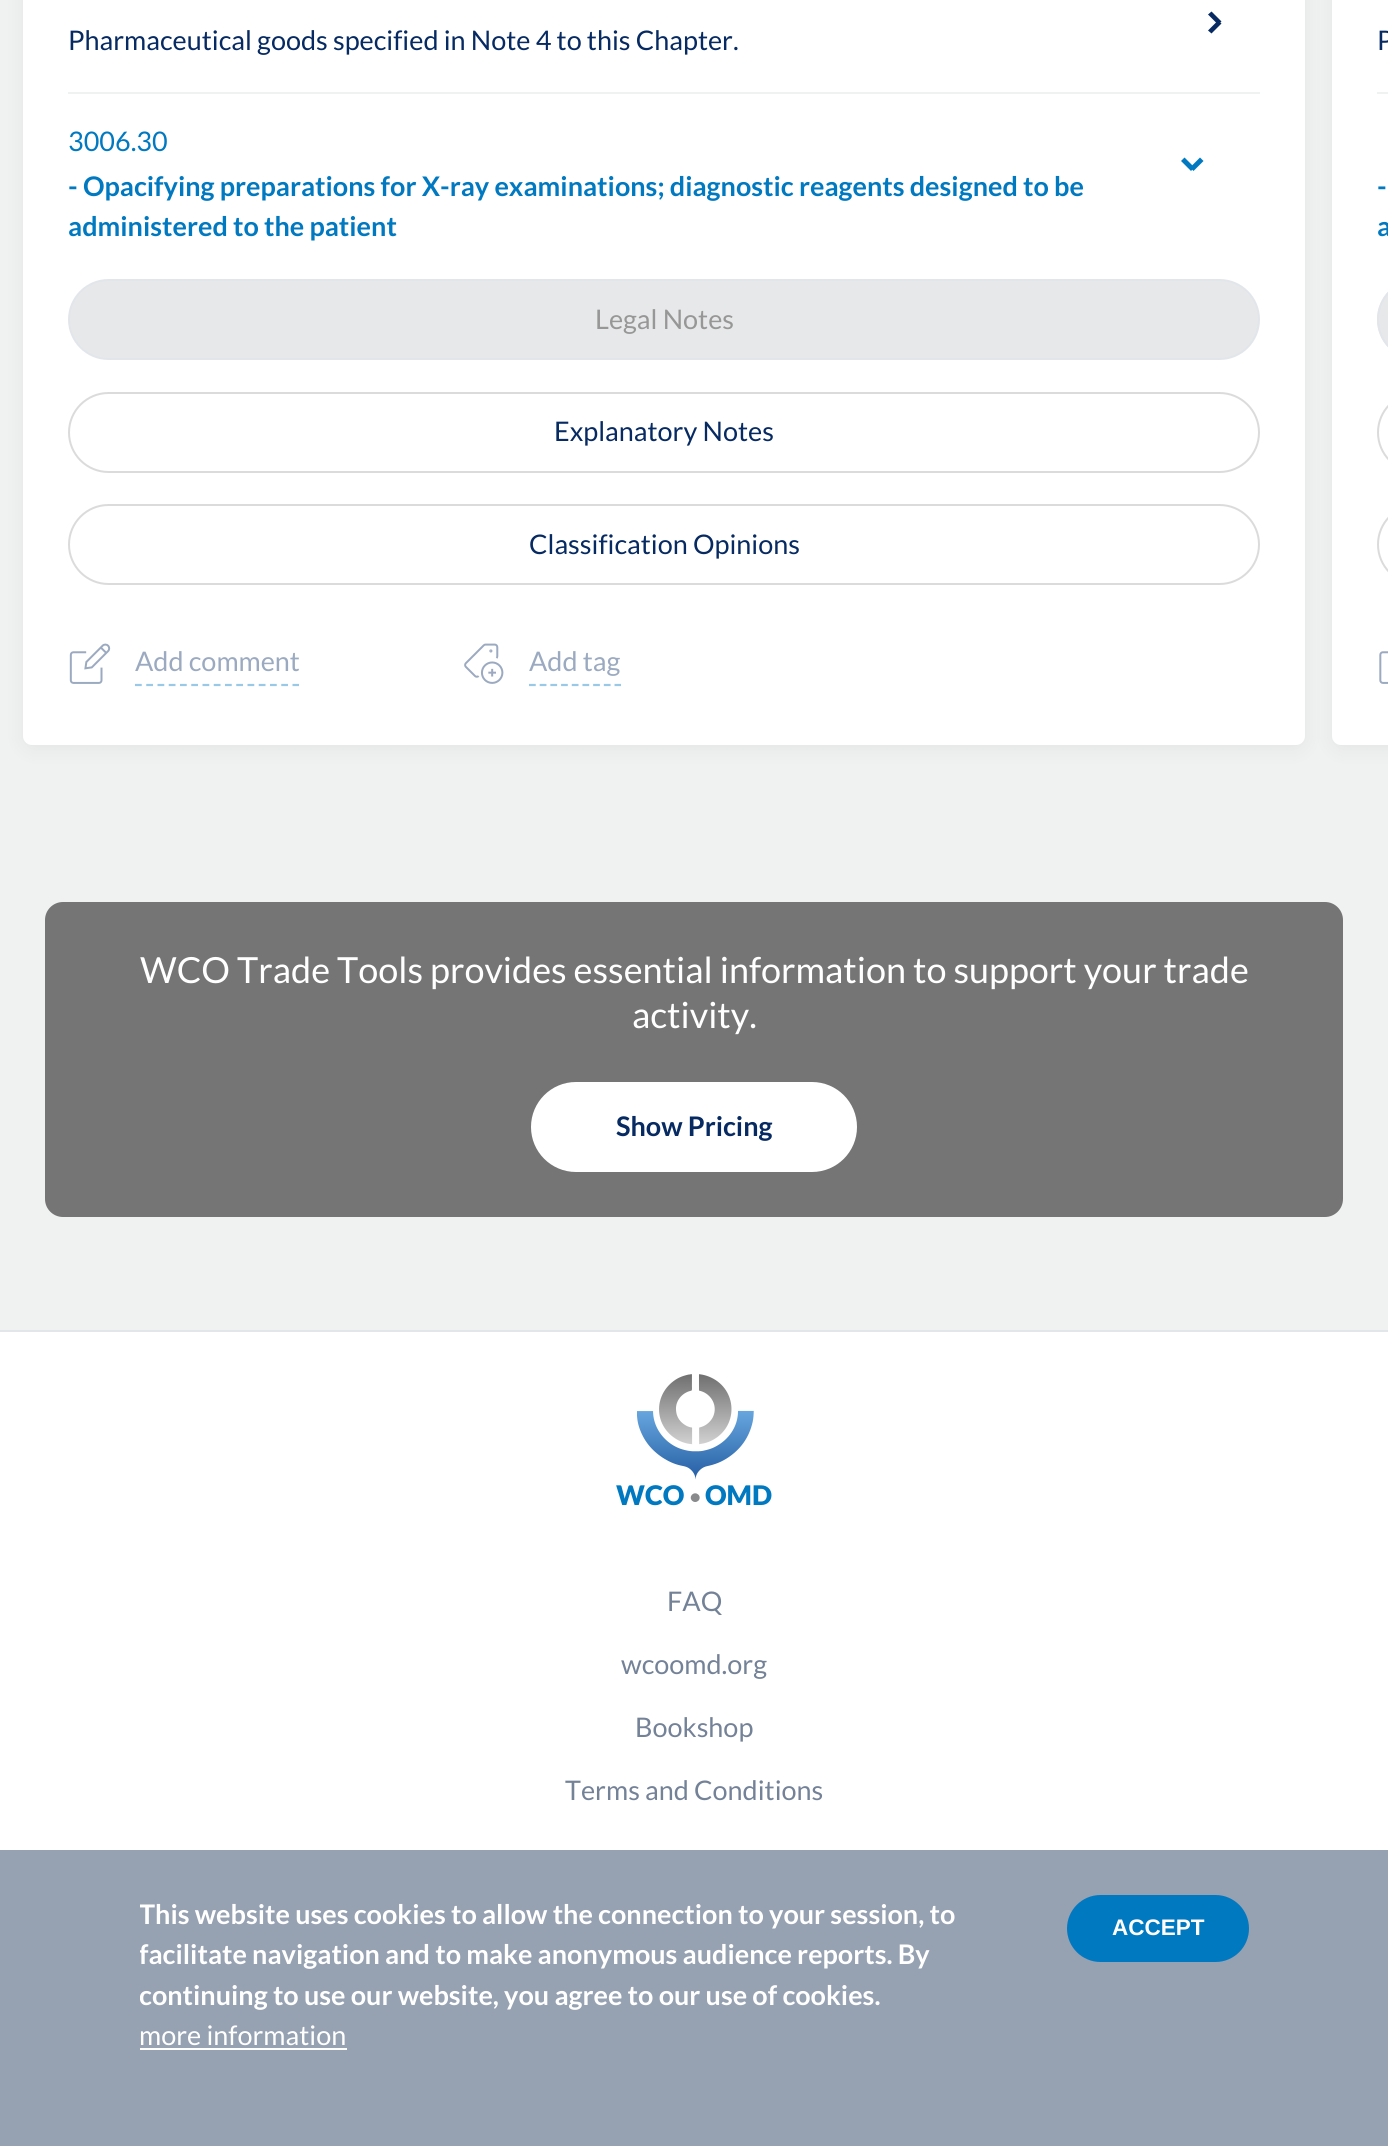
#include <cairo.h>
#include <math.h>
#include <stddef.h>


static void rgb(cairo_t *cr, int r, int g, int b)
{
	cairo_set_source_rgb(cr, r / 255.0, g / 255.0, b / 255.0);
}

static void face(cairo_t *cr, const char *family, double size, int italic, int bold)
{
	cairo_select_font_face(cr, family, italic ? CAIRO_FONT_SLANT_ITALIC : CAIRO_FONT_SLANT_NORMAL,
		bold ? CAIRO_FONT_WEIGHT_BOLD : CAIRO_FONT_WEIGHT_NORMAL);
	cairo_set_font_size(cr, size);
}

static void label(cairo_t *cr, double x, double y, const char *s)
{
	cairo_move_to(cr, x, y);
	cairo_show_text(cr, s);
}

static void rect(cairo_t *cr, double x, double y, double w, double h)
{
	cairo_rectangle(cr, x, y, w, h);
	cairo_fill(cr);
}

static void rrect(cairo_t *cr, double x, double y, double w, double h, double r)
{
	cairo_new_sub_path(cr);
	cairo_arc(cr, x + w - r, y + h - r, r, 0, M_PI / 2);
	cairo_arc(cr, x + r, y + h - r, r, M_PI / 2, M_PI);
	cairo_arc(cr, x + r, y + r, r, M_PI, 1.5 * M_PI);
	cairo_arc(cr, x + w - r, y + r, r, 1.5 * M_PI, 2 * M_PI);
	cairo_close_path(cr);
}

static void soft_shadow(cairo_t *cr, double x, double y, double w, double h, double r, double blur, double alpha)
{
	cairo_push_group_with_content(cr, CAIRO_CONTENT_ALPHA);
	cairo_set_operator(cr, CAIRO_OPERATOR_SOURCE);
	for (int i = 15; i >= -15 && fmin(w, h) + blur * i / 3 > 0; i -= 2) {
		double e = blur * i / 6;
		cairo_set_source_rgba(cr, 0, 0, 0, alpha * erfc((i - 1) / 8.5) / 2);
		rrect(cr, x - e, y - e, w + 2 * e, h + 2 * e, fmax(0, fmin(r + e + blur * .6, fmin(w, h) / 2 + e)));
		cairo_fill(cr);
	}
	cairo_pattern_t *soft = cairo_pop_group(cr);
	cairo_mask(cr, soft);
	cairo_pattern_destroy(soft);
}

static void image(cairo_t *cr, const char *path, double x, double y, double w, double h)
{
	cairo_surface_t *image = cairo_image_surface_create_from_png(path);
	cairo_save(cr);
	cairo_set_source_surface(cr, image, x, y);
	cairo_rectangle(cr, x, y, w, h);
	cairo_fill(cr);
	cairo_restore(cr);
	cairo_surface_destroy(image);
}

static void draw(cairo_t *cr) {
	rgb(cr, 240, 242, 242);
	cairo_paint(cr);
	rgb(cr, 0, 0, 0);
	soft_shadow(cr, 23, -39, 1282, 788, 9, 10, 0.05);
	rgb(cr, 255, 255, 255);
	rrect(cr, 23, -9, 1282, 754, 9);
	cairo_fill(cr);
	rgb(cr, 6, 42, 97);
	cairo_new_path(cr);
	cairo_move_to(cr, 1208, 14.5);
	cairo_line_to(cr, 1211.5, 11.5);
	cairo_line_to(cr, 1221.5, 21.5);
	cairo_line_to(cr, 1218, 24.5);
	cairo_close_path(cr);
	cairo_fill(cr);
	cairo_new_path(cr);
	cairo_move_to(cr, 1208, 30.5);
	cairo_line_to(cr, 1218, 20.5);
	cairo_line_to(cr, 1221.5, 23.5);
	cairo_line_to(cr, 1211.5, 33.5);
	cairo_close_path(cr);
	cairo_fill(cr);
	face(cr, "Lato", 27, 0, 0);
	label(cr, 68, 50, "Pharmaceutical goods specified in Note 4 to this Chapter.");
	rgb(cr, 240, 242, 242);
	rect(cr, 68, 92, 1192, 2);
	rgb(cr, 0, 121, 193);
	label(cr, 68, 151, "3006.30");
	cairo_new_path(cr);
	cairo_move_to(cr, 1200, 157.5);
	cairo_line_to(cr, 1203.5, 161);
	cairo_line_to(cr, 1193.5, 171);
	cairo_line_to(cr, 1190, 167.5);
	cairo_close_path(cr);
	cairo_fill(cr);
	cairo_new_path(cr);
	cairo_move_to(cr, 1184.5, 157.5);
	cairo_line_to(cr, 1194.5, 167.5);
	cairo_line_to(cr, 1191, 171);
	cairo_line_to(cr, 1181, 161);
	cairo_close_path(cr);
	cairo_fill(cr);
	face(cr, "Lato", 27, 0, 1);
	label(cr, 68, 196, "- Opacifying preparations for X-ray examinations; diagnostic reagents designed to be");
	label(cr, 68, 236, "administered to the patient");
	rgb(cr, 231, 232, 233);
	rrect(cr, 69, 280, 1190, 79, 39.5);
	cairo_fill_preserve(cr);
	rgb(cr, 226, 229, 234);
	cairo_stroke(cr);
	face(cr, "Lato", 27, 0, 0);
	rgb(cr, 151, 151, 151);
	label(cr, 595, 329, "Legal Notes");
	rrect(cr, 69, 393, 1190, 79, 39.5);
	rgb(cr, 219, 219, 219);
	cairo_stroke(cr);
	rgb(cr, 6, 42, 97);
	label(cr, 554, 441, "Explanatory Notes");
	rrect(cr, 69, 505, 1190, 79, 39.5);
	rgb(cr, 219, 219, 219);
	cairo_stroke(cr);
	rgb(cr, 6, 42, 97);
	label(cr, 529, 554, "Classification Opinions");
	image(cr, "image0.png", 69, 643, 42, 41);
	cairo_new_path(cr);
	cairo_move_to(cr, 135, 685);
	cairo_line_to(cr, 299, 685);
	rgb(cr, 153, 201, 230);
	cairo_set_line_width(cr, 2.2);
	cairo_set_dash(cr, (double[]){6.75, 4.5}, 2, 0);
	cairo_stroke(cr);
	rgb(cr, 155, 170, 192);
	label(cr, 135, 671, "Add comment");
	image(cr, "image1.png", 464, 643, 40, 41);
	cairo_new_path(cr);
	cairo_move_to(cr, 529, 685);
	cairo_line_to(cr, 621, 685);
	rgb(cr, 153, 201, 230);
	cairo_set_dash(cr, (double[]){6.75, 3.94}, 2, 0);
	cairo_stroke(cr);
	rgb(cr, 155, 170, 192);
	label(cr, 529, 671, "Add tag");
	rgb(cr, 0, 0, 0);
	soft_shadow(cr, 1332, -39, 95, 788, 9, 10, 0.05);
	rgb(cr, 255, 255, 255);
	cairo_new_path(cr);
	cairo_move_to(cr, 1341, -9);
	cairo_line_to(cr, 1388, -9);
	cairo_line_to(cr, 1388, 745);
	cairo_line_to(cr, 1341, 745);
	cairo_curve_to(cr, 1336, 745, 1332, 741, 1332, 736);
	cairo_line_to(cr, 1332, 0);
	cairo_curve_to(cr, 1332, -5, 1336, -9, 1341, -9);
	cairo_close_path(cr);
	cairo_fill(cr);
	rgb(cr, 6, 42, 97);
	label(cr, 1377, 50, "P");
	rgb(cr, 240, 242, 242);
	rect(cr, 1377, 92, 11, 2);
	face(cr, "Lato", 27, 0, 1);
	rgb(cr, 0, 121, 193);
	label(cr, 1377, 196, "-");
	label(cr, 1377, 236, "a");
	rgb(cr, 231, 232, 233);
	cairo_new_path(cr);
	cairo_move_to(cr, 1417.5, 279);
	cairo_line_to(cr, 1388, 279);
	cairo_line_to(cr, 1388, 360);
	cairo_line_to(cr, 1417.5, 360);
	cairo_curve_to(cr, 1395, 360, 1377, 342, 1377, 319.5);
	cairo_curve_to(cr, 1377, 297, 1395, 279, 1417.5, 279);
	cairo_close_path(cr);
	cairo_fill(cr);
	rrect(cr, 1378, 280, 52, 79, 39.5);
	rgb(cr, 226, 229, 234);
	cairo_set_line_width(cr, 2);
	cairo_set_dash(cr, NULL, 0, 0);
	cairo_stroke(cr);
	rrect(cr, 1378, 393, 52, 79, 39.5);
	rgb(cr, 219, 219, 219);
	cairo_stroke(cr);
	rrect(cr, 1378, 505, 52, 79, 39.5);
	cairo_stroke(cr);
	image(cr, "image2.png", 1379, 651, 9, 33);
	rgb(cr, 117, 117, 117);
	rrect(cr, 45, 902, 1298, 315, 18);
	cairo_fill(cr);
	face(cr, "Lato", 36, 0, 0);
	rgb(cr, 255, 255, 255);
	label(cr, 140, 983, "WCO Trade Tools provides essential information to support your trade");
	label(cr, 632, 1028, "activity.");
	rrect(cr, 532, 1083, 324, 88, 44);
	cairo_fill_preserve(cr);
	cairo_stroke(cr);
	face(cr, "Lato", 27, 0, 1);
	rgb(cr, 6, 42, 97);
	label(cr, 616, 1136, "Show Pricing");
	rgb(cr, 255, 255, 255);
	rect(cr, 0, 1332, 1388, 518);
	rgb(cr, 226, 229, 234);
	rect(cr, 0, 1330, 1388, 2);
	image(cr, "image3.png", 637, 1374, 117, 106);
	face(cr, "Lato Black", 27, 0, 0);
	rgb(cr, 0, 121, 193);
	label(cr, 616, 1505, "WCO");
	face(cr, "Lato Black", 18, 0, 0);
	rgb(cr, 136, 138, 140);
	label(cr, 690, 1503, "•");
	face(cr, "Lato Black", 27, 0, 0);
	rgb(cr, 0, 121, 193);
	label(cr, 705, 1505, "OMD");
	face(cr, "Lato", 27, 0, 0);
	rgb(cr, 116, 130, 152);
	label(cr, 667, 1611, "FAQ");
	label(cr, 621, 1674, "wcoomd.org");
	label(cr, 635, 1737, "Bookshop");
	label(cr, 565, 1800, "Terms and Conditions");
	rgb(cr, 150, 161, 178);
	rect(cr, 0, 1850, 1388, 296);
	cairo_save(cr);
	cairo_rectangle(cr, 140, 1850, 1109, 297);
	cairo_clip(cr);
	face(cr, "Lato", 27, 0, 1);
	rgb(cr, 255, 255, 255);
	label(cr, 139, 1924, "This website uses cookies to allow the connection to your session, to");
	label(cr, 139, 1964, "facilitate navigation and to make anonymous audience reports. By");
	label(cr, 139, 2005, "continuing to use our website, you agree to our use of cookies.");
	cairo_restore(cr);
	rgb(cr, 255, 255, 255);
	label(cr, 139, 2045, "more information");
	rect(cr, 140, 2048, 207, 2);
	rgb(cr, 0, 121, 193);
	rrect(cr, 1067, 1895, 182, 67, 33.5);
	cairo_fill(cr);
	face(cr, "Liberation Sans", 22.5, 0, 1);
	rgb(cr, 255, 255, 255);
	label(cr, 1112, 1935, "ACCEPT");
}

int main(void) {
	cairo_surface_t *surface = cairo_image_surface_create(CAIRO_FORMAT_RGB24, 1388, 2146);
	cairo_t *cr = cairo_create(surface);
	cairo_font_options_t *options = cairo_font_options_create();
	cairo_font_options_set_hint_metrics(options, CAIRO_HINT_METRICS_OFF);
	cairo_font_options_set_hint_style(options, CAIRO_HINT_STYLE_NONE);
	cairo_set_font_options(cr, options);
	cairo_set_miter_limit(cr, 4);
	draw(cr);
	cairo_surface_write_to_png(surface, "render.png");
	cairo_font_options_destroy(options);
	cairo_destroy(cr);
	cairo_surface_destroy(surface);
	return 0;
}
